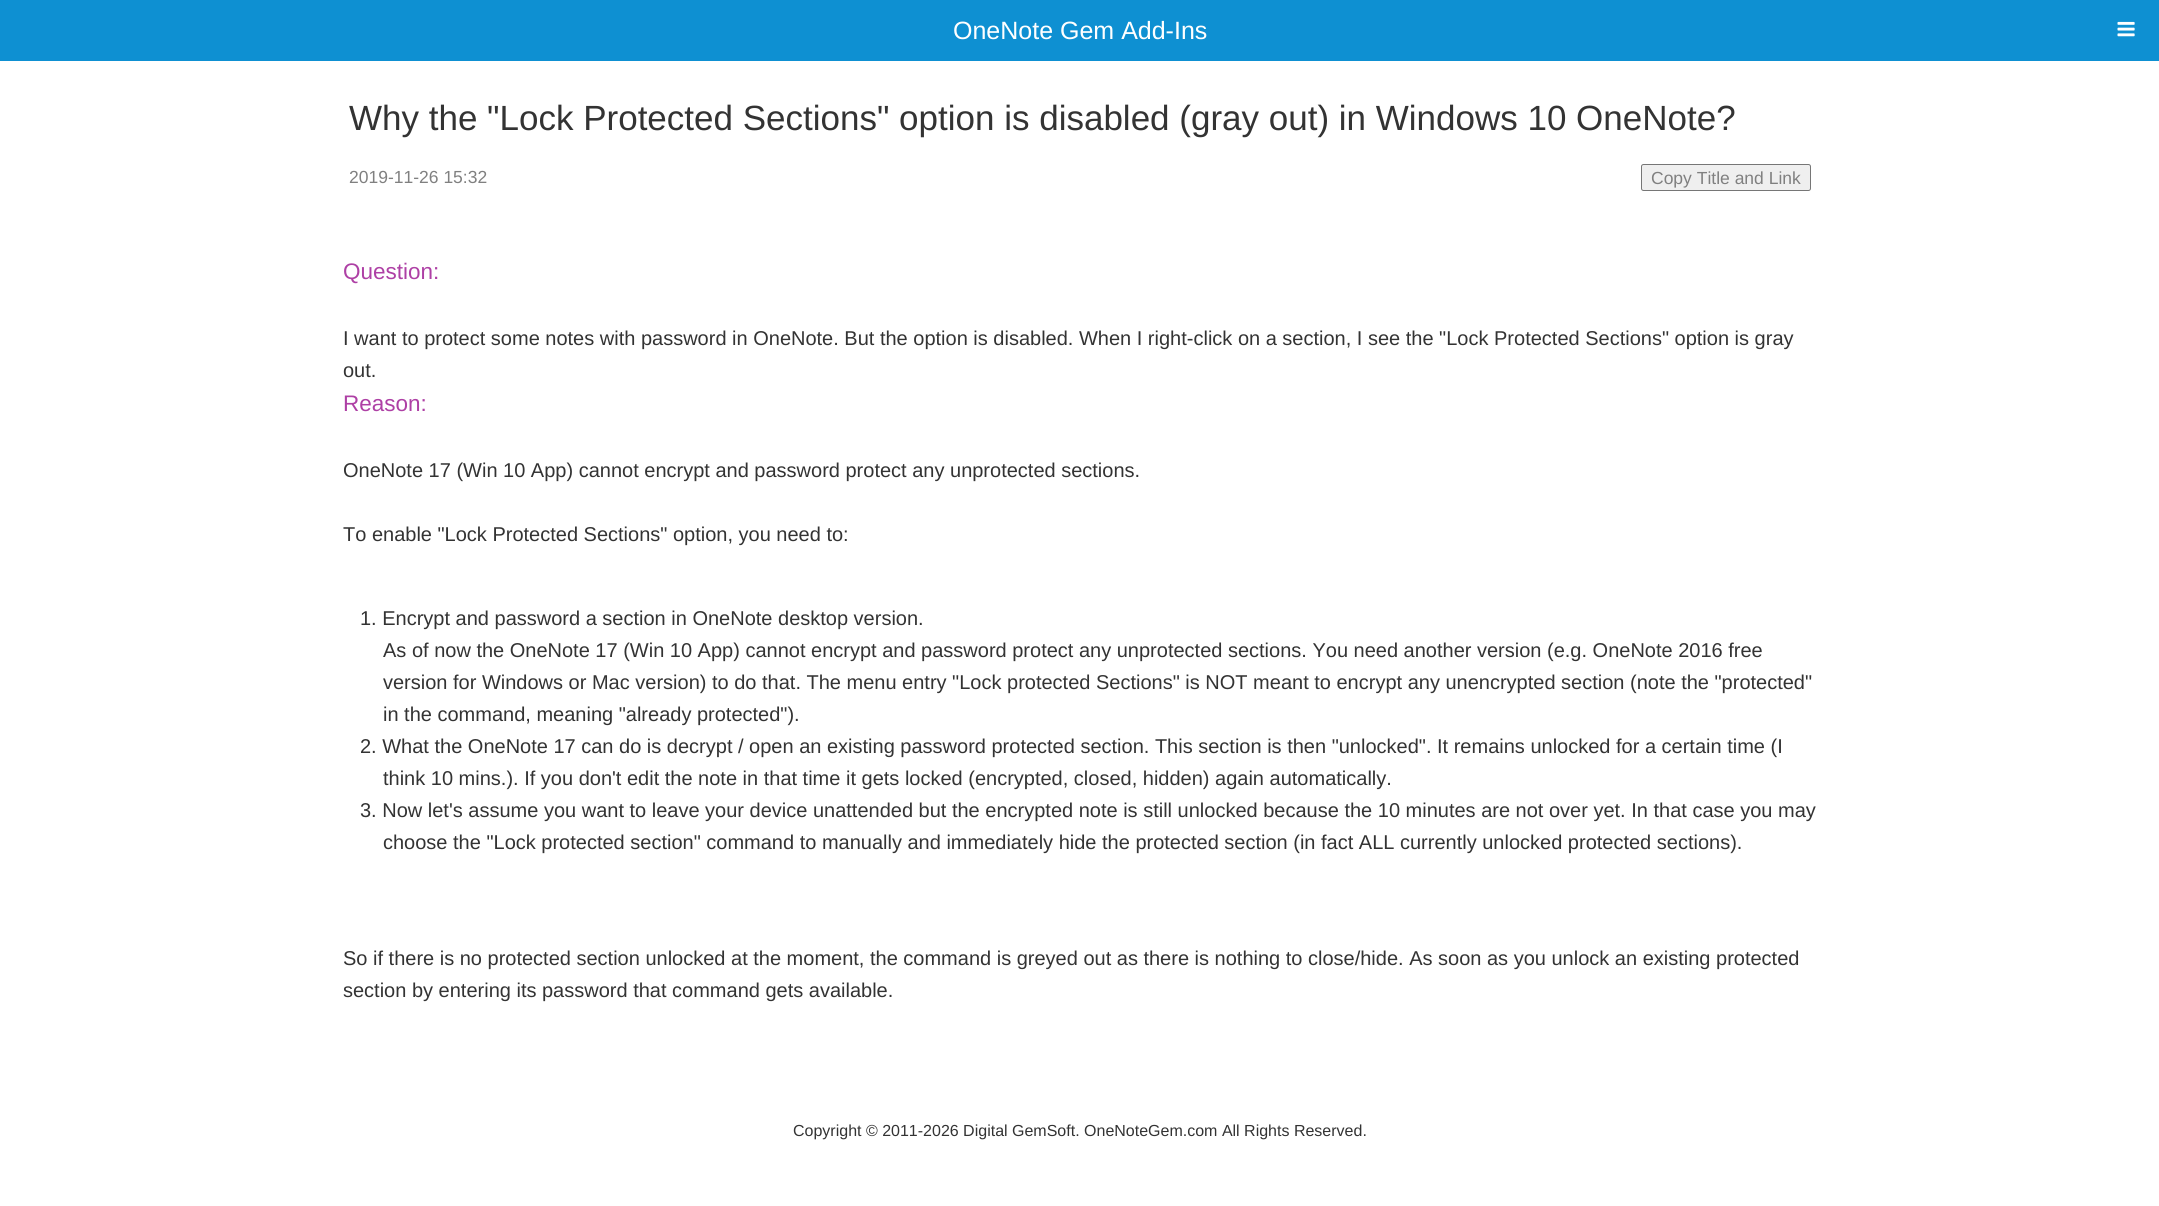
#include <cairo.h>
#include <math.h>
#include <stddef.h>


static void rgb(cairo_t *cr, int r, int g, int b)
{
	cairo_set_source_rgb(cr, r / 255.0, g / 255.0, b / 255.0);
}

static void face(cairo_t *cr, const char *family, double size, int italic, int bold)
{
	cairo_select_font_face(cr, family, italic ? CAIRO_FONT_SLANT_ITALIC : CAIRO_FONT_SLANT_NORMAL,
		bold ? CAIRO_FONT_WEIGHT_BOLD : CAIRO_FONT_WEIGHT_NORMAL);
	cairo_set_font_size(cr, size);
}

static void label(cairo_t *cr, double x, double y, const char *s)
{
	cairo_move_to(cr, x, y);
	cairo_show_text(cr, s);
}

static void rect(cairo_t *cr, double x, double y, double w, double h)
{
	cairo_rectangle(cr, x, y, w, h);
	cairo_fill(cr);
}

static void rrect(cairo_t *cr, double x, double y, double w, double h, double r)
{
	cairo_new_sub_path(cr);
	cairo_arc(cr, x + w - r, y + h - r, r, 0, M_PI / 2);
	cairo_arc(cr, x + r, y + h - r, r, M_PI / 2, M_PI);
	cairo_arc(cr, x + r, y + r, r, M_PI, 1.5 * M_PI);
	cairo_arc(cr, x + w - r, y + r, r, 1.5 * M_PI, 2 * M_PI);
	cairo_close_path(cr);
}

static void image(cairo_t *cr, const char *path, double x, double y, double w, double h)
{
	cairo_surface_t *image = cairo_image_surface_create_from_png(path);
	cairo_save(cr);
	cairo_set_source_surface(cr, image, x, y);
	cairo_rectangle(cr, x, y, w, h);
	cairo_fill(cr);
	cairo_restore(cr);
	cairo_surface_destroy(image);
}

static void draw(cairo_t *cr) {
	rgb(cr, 255, 255, 255);
	cairo_paint(cr);
	rgb(cr, 14, 144, 210);
	rect(cr, 0, 0, 2159, 61);
	face(cr, "Liberation Sans", 25, 0, 0);
	rgb(cr, 255, 255, 255);
	label(cr, 953, 39, "OneNote Gem Add-Ins");
	image(cr, "image0.png", 2117, 21, 18, 16);
	face(cr, "Liberation Sans", 35, 0, 0);
	rgb(cr, 51, 51, 51);
	label(cr, 349, 130, "Why the \"Lock Protected Sections\" option is disabled (gray out) in Windows 10 OneNote?");
	face(cr, "Liberation Sans", 17.5, 0, 0);
	rgb(cr, 128, 128, 128);
	label(cr, 349, 183, "2019-11-26 15:32");
	rgb(cr, 239, 239, 239);
	rrect(cr, 1641.5, 164.5, 169, 26, 2);
	cairo_fill_preserve(cr);
	rgb(cr, 118, 118, 118);
	cairo_set_line_width(cr, 1);
	cairo_stroke(cr);
	rgb(cr, 128, 128, 128);
	label(cr, 1651, 184, "Copy Title and Link");
	face(cr, "Liberation Sans", 22.5, 0, 0);
	rgb(cr, 174, 64, 165);
	label(cr, 343, 279, "Question:");
	face(cr, "Liberation Sans", 20, 0, 0);
	rgb(cr, 51, 51, 51);
	label(cr, 343, 345, "I want to protect some notes with password in OneNote. But the option is disabled. When I right-click on a section, I see the \"Lock Protected Sections\" option is gray");
	label(cr, 343, 377, "out.");
	face(cr, "Liberation Sans", 22.5, 0, 0);
	rgb(cr, 174, 64, 165);
	label(cr, 343, 411, "Reason:");
	face(cr, "Liberation Sans", 20, 0, 0);
	rgb(cr, 51, 51, 51);
	label(cr, 343, 477, "OneNote 17 (Win 10 App) cannot encrypt and password protect any unprotected sections.");
	label(cr, 343, 541, "To enable \"Lock Protected Sections\" option, you need to:");
	label(cr, 360, 625, "1. Encrypt and password a section in OneNote desktop version.");
	label(cr, 383, 657, "As of now the OneNote 17 (Win 10 App) cannot encrypt and password protect any unprotected sections. You need another version (e.g. OneNote 2016 free");
	label(cr, 383, 689, "version for Windows or Mac version) to do that. The menu entry \"Lock protected Sections\" is NOT meant to encrypt any unencrypted section (note the \"protected\"");
	label(cr, 383, 721, "in the command, meaning \"already protected\").");
	label(cr, 360, 753, "2. What the OneNote 17 can do is decrypt / open an existing password protected section. This section is then \"unlocked\". It remains unlocked for a certain time (I");
	label(cr, 383, 785, "think 10 mins.). If you don't edit the note in that time it gets locked (encrypted, closed, hidden) again automatically.");
	label(cr, 360, 817, "3. Now let's assume you want to leave your device unattended but the encrypted note is still unlocked because the 10 minutes are not over yet. In that case you may");
	label(cr, 383, 849, "choose the \"Lock protected section\" command to manually and immediately hide the protected section (in fact ALL currently unlocked protected sections).");
	label(cr, 343, 965, "So if there is no protected section unlocked at the moment, the command is greyed out as there is nothing to close/hide. As soon as you unlock an existing protected");
	label(cr, 343, 997, "section by entering its password that command gets available.");
	face(cr, "Liberation Sans", 16, 0, 0);
	label(cr, 793, 1136, "Copyright © 2011-2026 Digital GemSoft. OneNoteGem.com All Rights Reserved.");
}

int main(void) {
	cairo_surface_t *surface = cairo_image_surface_create(CAIRO_FORMAT_RGB24, 2159, 1206);
	cairo_t *cr = cairo_create(surface);
	cairo_font_options_t *options = cairo_font_options_create();
	cairo_font_options_set_hint_metrics(options, CAIRO_HINT_METRICS_OFF);
	cairo_font_options_set_hint_style(options, CAIRO_HINT_STYLE_NONE);
	cairo_set_font_options(cr, options);
	cairo_set_miter_limit(cr, 4);
	draw(cr);
	cairo_surface_write_to_png(surface, "render.png");
	cairo_font_options_destroy(options);
	cairo_destroy(cr);
	cairo_surface_destroy(surface);
	return 0;
}
